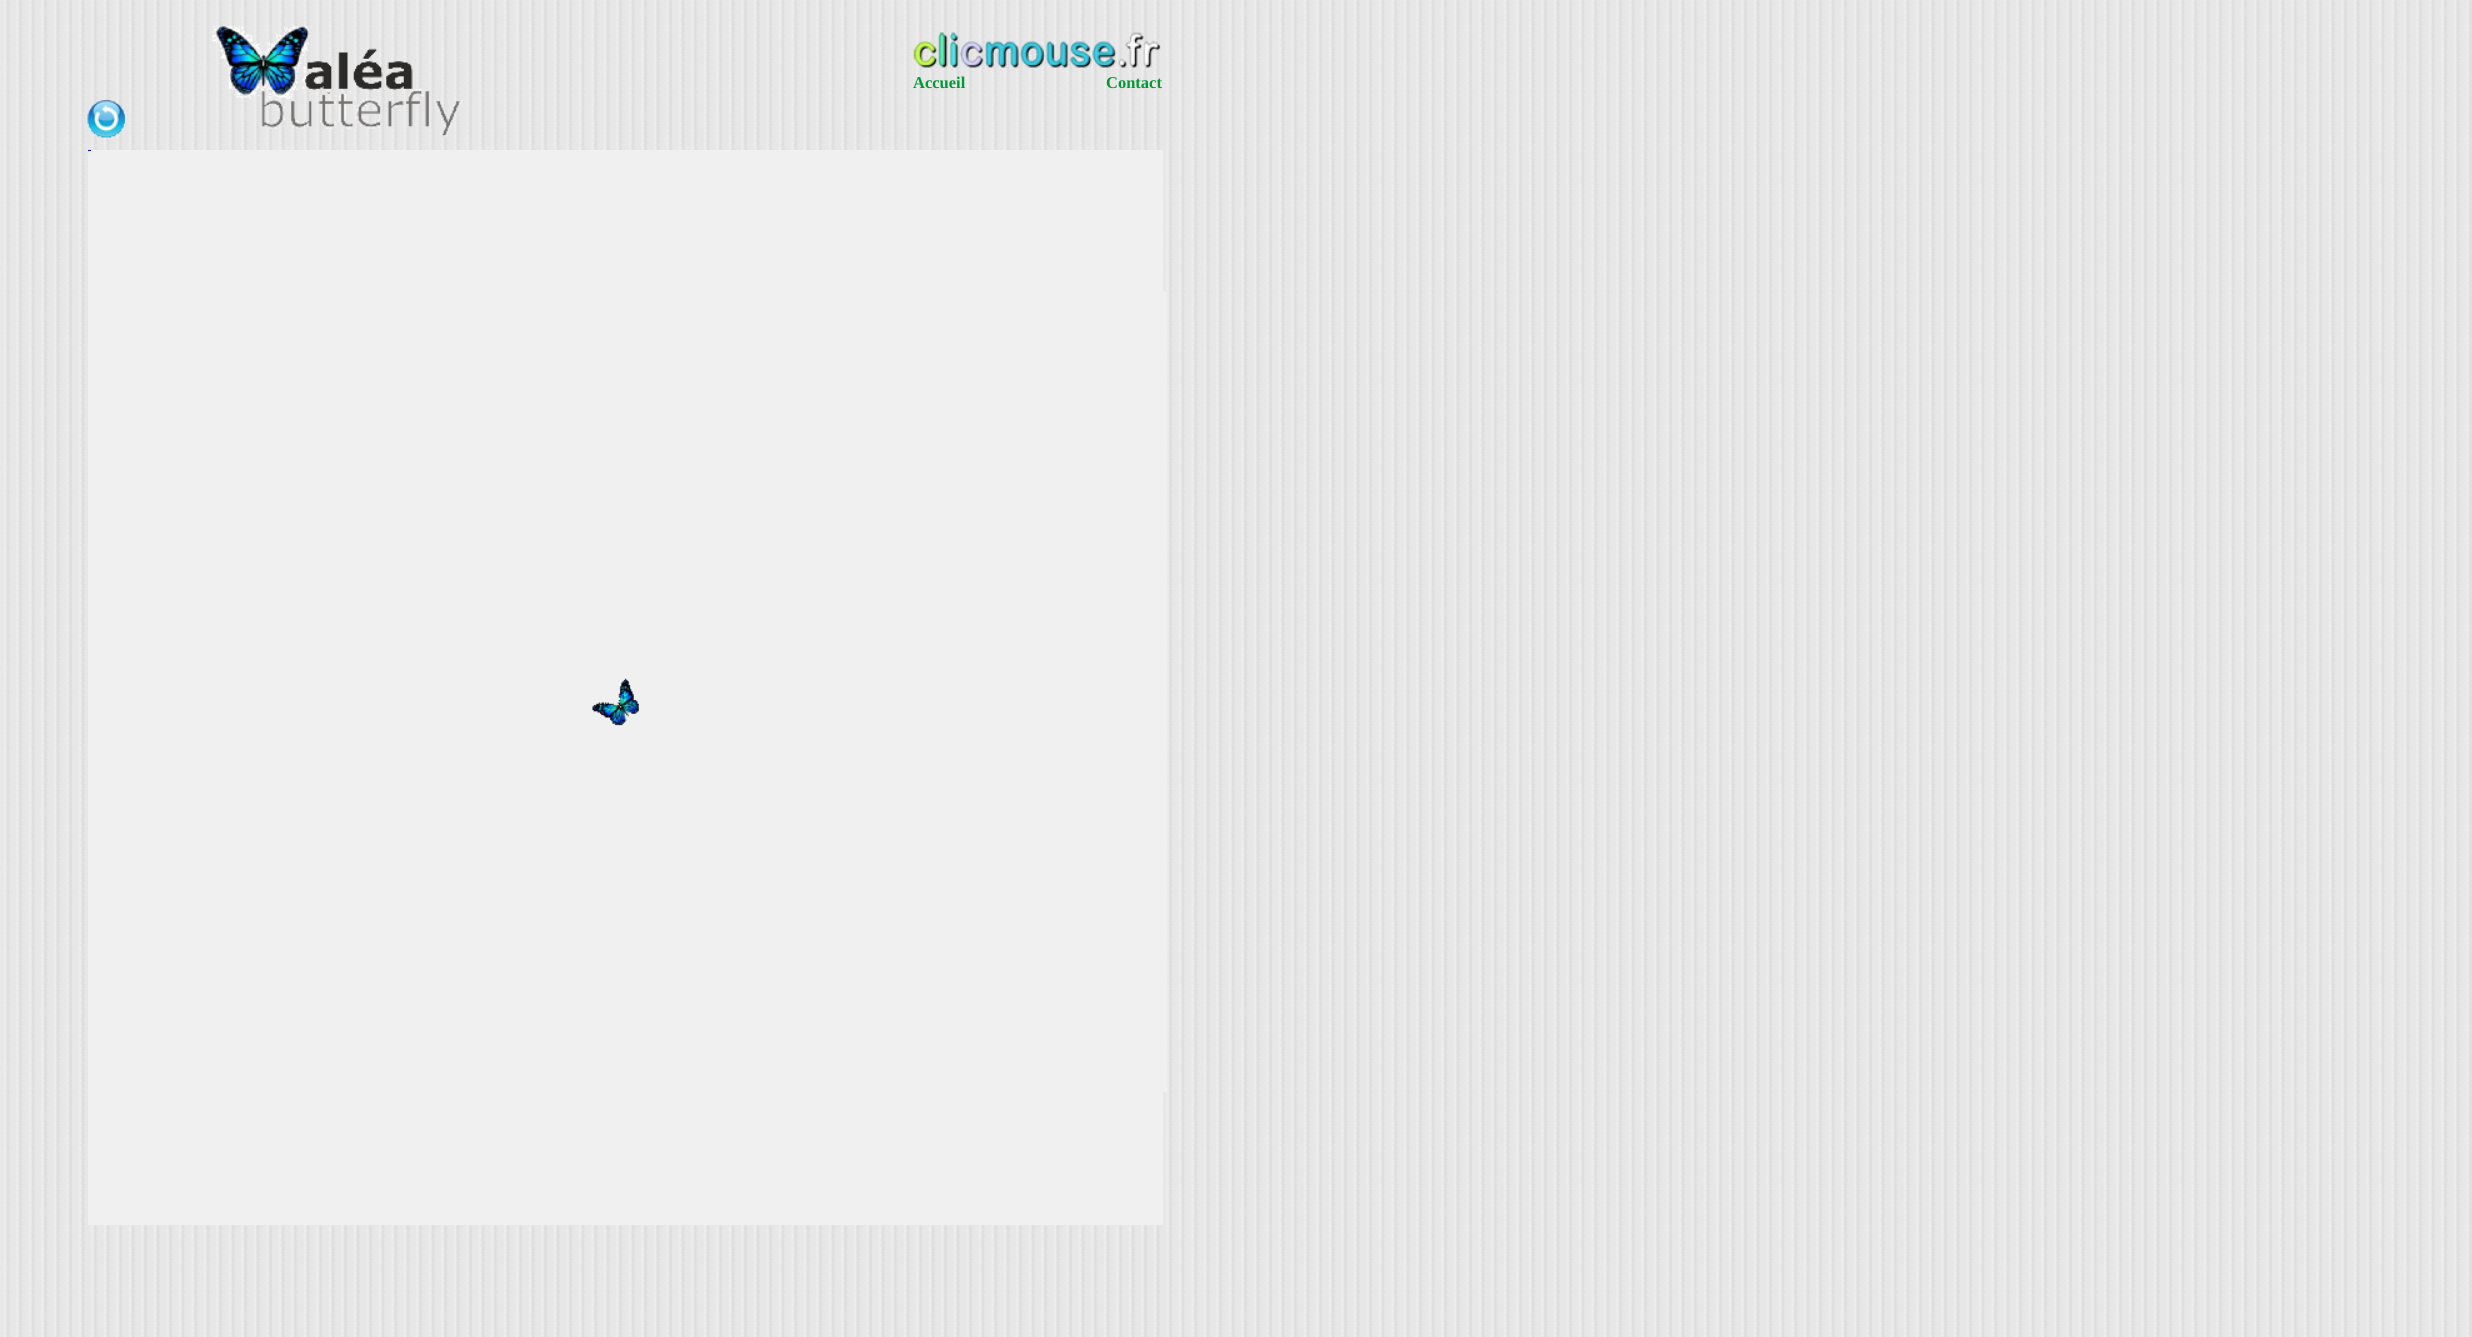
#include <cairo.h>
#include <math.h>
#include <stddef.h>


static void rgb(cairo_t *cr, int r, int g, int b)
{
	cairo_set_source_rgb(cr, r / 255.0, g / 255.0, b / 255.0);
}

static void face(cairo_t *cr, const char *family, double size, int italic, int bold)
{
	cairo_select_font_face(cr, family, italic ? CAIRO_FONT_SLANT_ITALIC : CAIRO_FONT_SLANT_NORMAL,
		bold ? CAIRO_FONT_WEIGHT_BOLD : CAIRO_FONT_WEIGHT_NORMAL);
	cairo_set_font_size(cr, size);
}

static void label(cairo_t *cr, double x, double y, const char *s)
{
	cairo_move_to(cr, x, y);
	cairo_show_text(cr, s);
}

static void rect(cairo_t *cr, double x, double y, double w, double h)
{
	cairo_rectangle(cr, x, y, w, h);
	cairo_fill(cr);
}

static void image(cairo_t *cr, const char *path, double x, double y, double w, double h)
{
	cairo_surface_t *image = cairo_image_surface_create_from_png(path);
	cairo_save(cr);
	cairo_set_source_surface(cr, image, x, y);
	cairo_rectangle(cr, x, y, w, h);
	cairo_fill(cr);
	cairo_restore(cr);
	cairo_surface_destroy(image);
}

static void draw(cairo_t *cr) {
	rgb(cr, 255, 255, 255);
	cairo_paint(cr);
	image(cr, "image0.png", 0, 0, 2472, 1337);
	image(cr, "image1.png", 212, 26, 251, 112);
	image(cr, "image2.png", 913, 32, 248, 37);
	face(cr, "Liberation Serif", 16.5, 0, 1);
	rgb(cr, 0, 153, 51);
	label(cr, 913, 88, "Accueil");
	label(cr, 1106, 88, "Contact");
	image(cr, "image3.png", 87, 100, 38, 38);
	rgb(cr, 240, 240, 240);
	rect(cr, 88, 150, 1075, 1075);
	rgb(cr, 0, 0, 255);
	rect(cr, 88, 150, 3, 1);
	image(cr, "image4.png", 592, 678, 47, 48);
	rgb(cr, 240, 240, 240);
	rect(cr, 1163, 291, 3, 25);
	rect(cr, 1163, 292, 4, 25);
	rect(cr, 1163, 317, 3, 24);
	rect(cr, 1163, 317, 4, 25);
	rect(cr, 1163, 342, 3, 24);
	rect(cr, 1163, 342, 4, 25);
	rect(cr, 1163, 367, 3, 24);
	rect(cr, 1163, 367, 4, 25);
	rect(cr, 1163, 392, 3, 24);
	rect(cr, 1163, 392, 4, 25);
	rect(cr, 1163, 417, 3, 24);
	rect(cr, 1163, 417, 4, 25);
	rect(cr, 1163, 442, 3, 24);
	rect(cr, 1163, 442, 4, 25);
	rect(cr, 1163, 467, 3, 24);
	rect(cr, 1163, 467, 4, 25);
	rect(cr, 1163, 492, 3, 24);
	rect(cr, 1163, 492, 4, 25);
	rect(cr, 1163, 517, 3, 24);
	rect(cr, 1163, 517, 4, 25);
	rect(cr, 1163, 542, 3, 24);
	rect(cr, 1163, 542, 4, 25);
	rect(cr, 1163, 567, 3, 24);
	rect(cr, 1163, 567, 4, 25);
	rect(cr, 1163, 592, 3, 24);
	rect(cr, 1163, 592, 4, 25);
	rect(cr, 1163, 617, 3, 24);
	rect(cr, 1163, 617, 4, 25);
	rect(cr, 1163, 642, 3, 24);
	rect(cr, 1163, 642, 4, 25);
	rect(cr, 1163, 667, 3, 24);
	rect(cr, 1163, 667, 4, 25);
	rect(cr, 1163, 692, 3, 24);
	rect(cr, 1163, 692, 4, 25);
	rect(cr, 1163, 717, 3, 24);
	rect(cr, 1163, 717, 4, 25);
	rect(cr, 1163, 742, 3, 24);
	rect(cr, 1163, 742, 4, 25);
	rect(cr, 1163, 767, 3, 24);
	rect(cr, 1163, 767, 4, 25);
	rect(cr, 1163, 792, 3, 24);
	rect(cr, 1163, 792, 4, 25);
	rect(cr, 1163, 817, 3, 24);
	rect(cr, 1163, 817, 4, 25);
	rect(cr, 1163, 842, 3, 24);
	rect(cr, 1163, 842, 4, 25);
	rect(cr, 1163, 867, 3, 24);
	rect(cr, 1163, 867, 4, 25);
	rect(cr, 1163, 892, 3, 24);
	rect(cr, 1163, 892, 4, 25);
	rect(cr, 1163, 917, 3, 24);
	rect(cr, 1163, 917, 4, 25);
	rect(cr, 1163, 942, 3, 24);
	rect(cr, 1163, 942, 4, 25);
	rect(cr, 1163, 967, 3, 24);
	rect(cr, 1163, 967, 4, 25);
	rect(cr, 1163, 992, 3, 24);
	rect(cr, 1163, 992, 4, 25);
	rect(cr, 1163, 1017, 3, 24);
	rect(cr, 1163, 1017, 4, 25);
	rect(cr, 1163, 1042, 3, 24);
	rect(cr, 1163, 1042, 4, 25);
	rect(cr, 1163, 1067, 3, 24);
	rect(cr, 1163, 1067, 4, 25);
	image(cr, "image5.png", 1166, 291, 1, 1);
}

int main(void) {
	cairo_surface_t *surface = cairo_image_surface_create(CAIRO_FORMAT_RGB24, 2472, 1337);
	cairo_t *cr = cairo_create(surface);
	cairo_font_options_t *options = cairo_font_options_create();
	cairo_font_options_set_hint_metrics(options, CAIRO_HINT_METRICS_OFF);
	cairo_font_options_set_hint_style(options, CAIRO_HINT_STYLE_NONE);
	cairo_set_font_options(cr, options);
	cairo_set_miter_limit(cr, 4);
	draw(cr);
	cairo_surface_write_to_png(surface, "render.png");
	cairo_font_options_destroy(options);
	cairo_destroy(cr);
	cairo_surface_destroy(surface);
	return 0;
}
